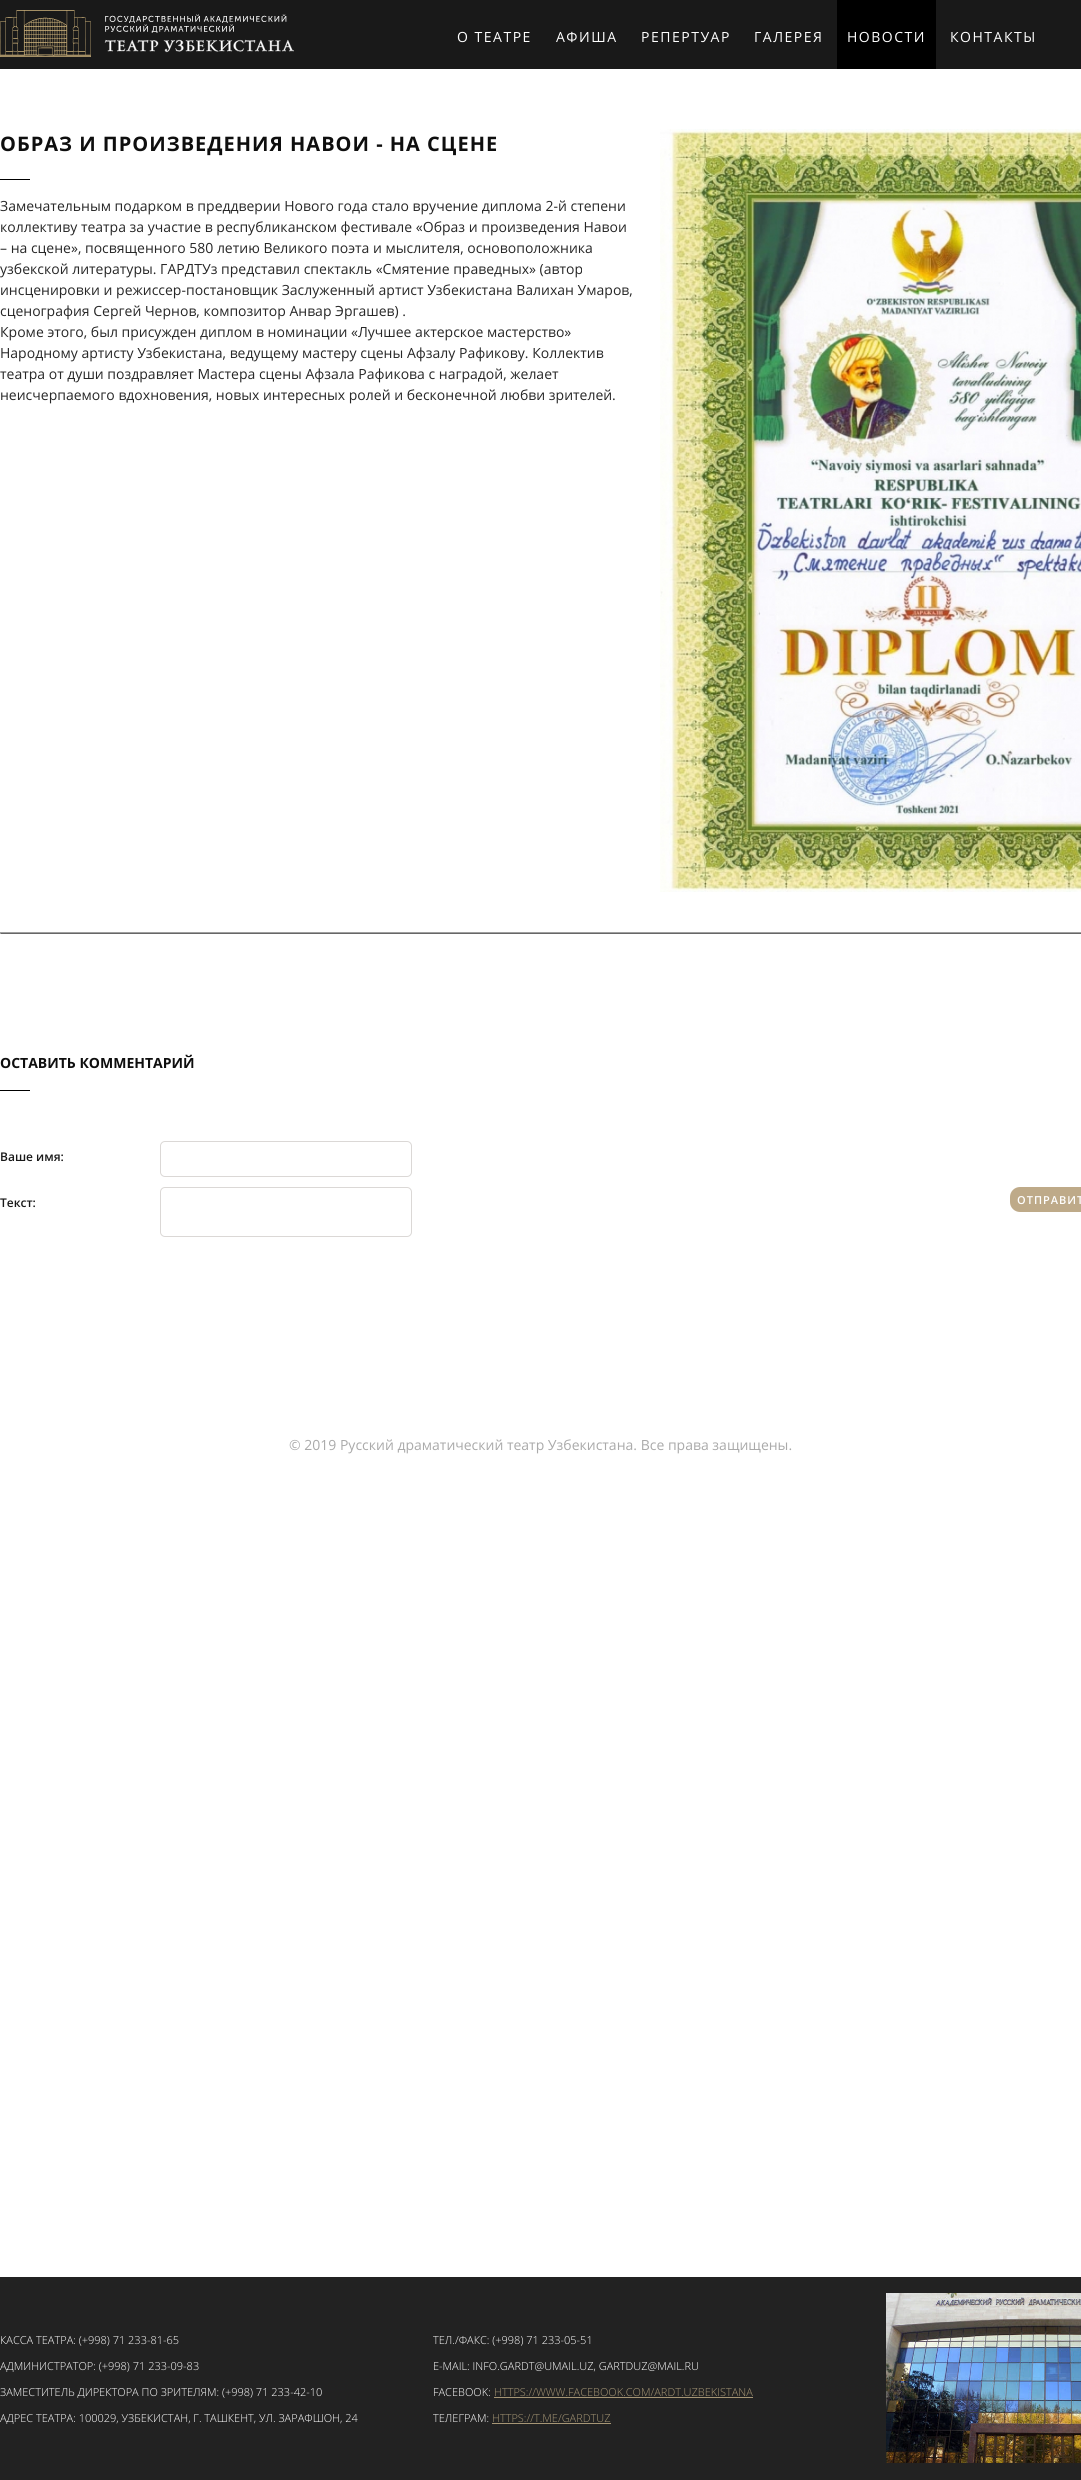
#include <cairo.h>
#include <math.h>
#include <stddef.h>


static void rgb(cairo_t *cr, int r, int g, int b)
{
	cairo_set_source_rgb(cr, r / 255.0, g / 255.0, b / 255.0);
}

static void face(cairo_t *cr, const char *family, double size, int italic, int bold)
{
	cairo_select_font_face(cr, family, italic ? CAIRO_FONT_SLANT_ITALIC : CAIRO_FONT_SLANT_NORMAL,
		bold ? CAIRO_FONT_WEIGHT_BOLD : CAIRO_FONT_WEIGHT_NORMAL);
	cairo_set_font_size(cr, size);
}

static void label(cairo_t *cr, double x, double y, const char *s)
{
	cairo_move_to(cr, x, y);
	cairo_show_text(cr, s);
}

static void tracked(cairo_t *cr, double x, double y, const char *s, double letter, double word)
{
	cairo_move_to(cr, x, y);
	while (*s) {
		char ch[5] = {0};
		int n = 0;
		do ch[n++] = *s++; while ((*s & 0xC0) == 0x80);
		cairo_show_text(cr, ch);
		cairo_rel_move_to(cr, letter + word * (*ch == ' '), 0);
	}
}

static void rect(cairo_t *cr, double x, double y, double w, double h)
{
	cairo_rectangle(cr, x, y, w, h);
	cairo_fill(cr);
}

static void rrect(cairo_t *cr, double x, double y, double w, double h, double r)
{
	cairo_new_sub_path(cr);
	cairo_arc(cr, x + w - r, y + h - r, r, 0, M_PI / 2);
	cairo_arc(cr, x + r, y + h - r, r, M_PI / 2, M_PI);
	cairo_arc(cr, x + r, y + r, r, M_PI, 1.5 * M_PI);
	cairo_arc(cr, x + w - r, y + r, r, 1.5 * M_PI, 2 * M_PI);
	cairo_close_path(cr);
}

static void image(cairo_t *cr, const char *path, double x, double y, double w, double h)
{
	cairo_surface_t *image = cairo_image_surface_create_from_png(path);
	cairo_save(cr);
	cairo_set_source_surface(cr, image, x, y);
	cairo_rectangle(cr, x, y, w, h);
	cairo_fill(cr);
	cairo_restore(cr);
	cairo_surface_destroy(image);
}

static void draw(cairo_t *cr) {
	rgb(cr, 255, 255, 255);
	cairo_paint(cr);
	rgb(cr, 25, 25, 25);
	rect(cr, 0, 0, 1081, 69);
	image(cr, "image0.png", 0, 10, 294, 47);
	face(cr, "Open Sans", 14, 0, 0);
	rgb(cr, 255, 255, 255);
	tracked(cr, 457, 42, "О ТЕАТРЕ", 1.5, 0);
	tracked(cr, 556, 42, "АФИША", 1.5, 0);
	tracked(cr, 641, 42, "РЕПЕРТУАР", 1.5, 0);
	tracked(cr, 754, 42, "ГАЛЕРЕЯ", 1.5, 0);
	rgb(cr, 0, 0, 0);
	rect(cr, 837, 0, 99, 69);
	rgb(cr, 255, 255, 255);
	tracked(cr, 847, 42, "НОВОСТИ", 1.5, 0);
	tracked(cr, 950, 42, "КОНТАКТЫ", 1.5, 0);
	face(cr, "Open Sans", 20, 0, 1);
	rgb(cr, 14, 14, 14);
	tracked(cr, 0, 151, "ОБРАЗ И ПРОИЗВЕДЕНИЯ НАВОИ - НА СЦЕНЕ", 1, 0);
	image(cr, "image1.png", 660, 129, 421, 763);
	rgb(cr, 0, 0, 0);
	rect(cr, 0, 179, 30, 1);
	face(cr, "Open Sans", 14, 0, 0);
	rgb(cr, 39, 39, 39);
	label(cr, 0, 211, "Замечательным подарком в преддверии Нового года стало вручение диплома 2-й степени");
	label(cr, 0, 232, "коллективу театра за участие в республиканском фестивале «Образ и произведения Навои");
	label(cr, 0, 253, "– на сцене», посвященного 580 летию Великого поэта и мыслителя, основоположника");
	label(cr, 0, 274, "узбекской литературы. ГАРДТУз представил спектакль «Смятение праведных» (автор");
	label(cr, 0, 295, "инсценировки и режиссер-постановщик Заслуженный артист Узбекистана Валихан Умаров,");
	label(cr, 0, 316, "сценография Сергей Чернов, композитор Анвар Эргашев) .");
	label(cr, 0, 337, "Кроме этого, был присужден диплом в номинации «Лучшее актерское мастерство»");
	label(cr, 0, 358, "Народному артисту Узбекистана, ведущему мастеру сцены Афзалу Рафикову. Коллектив");
	label(cr, 0, 379, "театра от души поздравляет Мастера сцены Афзала Рафикова с наградой, желает");
	label(cr, 0, 400, "неисчерпаемого вдохновения, новых интересных ролей и бесконечной любви зрителей.");
	rgb(cr, 159, 159, 159);
	rect(cr, 0, 932, 1081, 1);
	rgb(cr, 102, 102, 102);
	rect(cr, 0, 933, 1081, 1);
	rgb(cr, 159, 159, 159);
	rect(cr, 0, 932, 1, 2);
	face(cr, "Open Sans", 14, 0, 1);
	rgb(cr, 14, 14, 14);
	label(cr, 0, 1068, "ОСТАВИТЬ КОММЕНТАРИЙ");
	rgb(cr, 0, 0, 0);
	rect(cr, 0, 1090, 30, 1);
	face(cr, "Open Sans SemiBold", 12, 0, 0);
	rgb(cr, 25, 25, 25);
	label(cr, 0, 1161, "Ваше имя:");
	rrect(cr, 160.5, 1141.5, 251, 35, 4.5);
	rgb(cr, 219, 216, 214);
	cairo_set_line_width(cr, 1);
	cairo_stroke(cr);
	rgb(cr, 25, 25, 25);
	label(cr, 0, 1207, "Текст:");
	rrect(cr, 160.5, 1187.5, 251, 49, 4.5);
	rgb(cr, 219, 216, 214);
	cairo_stroke(cr);
	rgb(cr, 190, 170, 137);
	rrect(cr, 1010, 1187, 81, 25, 10);
	cairo_fill(cr);
	face(cr, "Open Sans SemiBold", 11, 0, 0);
	rgb(cr, 255, 255, 255);
	tracked(cr, 1017, 1204, "ОТПРАВИТ", 1, 0);
	face(cr, "Open Sans", 14, 0, 0);
	rgb(cr, 170, 170, 170);
	label(cr, 289, 1450, "© 2019 Русский драматический театр Узбекистана. Все права защищены.");
	rgb(cr, 34, 34, 34);
	rect(cr, 0, 2277, 1081, 203);
	face(cr, "Open Sans Light", 11, 0, 0);
	rgb(cr, 255, 255, 255);
	label(cr, 0, 2344, "КАССА ТЕАТРА: (+998) 71 233-81-65");
	label(cr, 0, 2370, "АДМИНИСТРАТОР: (+998) 71 233-09-83");
	label(cr, 0, 2396, "ЗАМЕСТИТЕЛЬ ДИРЕКТОРА ПО ЗРИТЕЛЯМ: (+998) 71 233-42-10");
	label(cr, 0, 2422, "АДРЕС ТЕАТРА: 100029, УЗБЕКИСТАН, Г. ТАШКЕНТ, УЛ. ЗАРАФШОН, 24");
	label(cr, 433, 2344, "ТЕЛ./ФАКС: (+998) 71 233-05-51");
	label(cr, 433, 2370, "E-MAIL: INFO.GARDT@UMAIL.UZ, GARTDUZ@MAIL.RU");
	label(cr, 433, 2396, "FACEBOOK:");
	rgb(cr, 166, 150, 117);
	label(cr, 494, 2396, "HTTPS://WWW.FACEBOOK.COM/ARDT.UZBEKISTANA");
	rect(cr, 494, 2397, 259, 1);
	rgb(cr, 255, 255, 255);
	label(cr, 433, 2422, "ТЕЛЕГРАМ:");
	rgb(cr, 166, 150, 117);
	label(cr, 492, 2422, "HTTPS://T.ME/GARDTUZ");
	rect(cr, 492, 2423, 119, 1);
	image(cr, "image2.png", 886, 2293, 195, 170);
}

int main(void) {
	cairo_surface_t *surface = cairo_image_surface_create(CAIRO_FORMAT_RGB24, 1081, 2480);
	cairo_t *cr = cairo_create(surface);
	cairo_font_options_t *options = cairo_font_options_create();
	cairo_font_options_set_hint_metrics(options, CAIRO_HINT_METRICS_OFF);
	cairo_font_options_set_hint_style(options, CAIRO_HINT_STYLE_NONE);
	cairo_set_font_options(cr, options);
	cairo_set_miter_limit(cr, 4);
	draw(cr);
	cairo_surface_write_to_png(surface, "render.png");
	cairo_font_options_destroy(options);
	cairo_destroy(cr);
	cairo_surface_destroy(surface);
	return 0;
}
